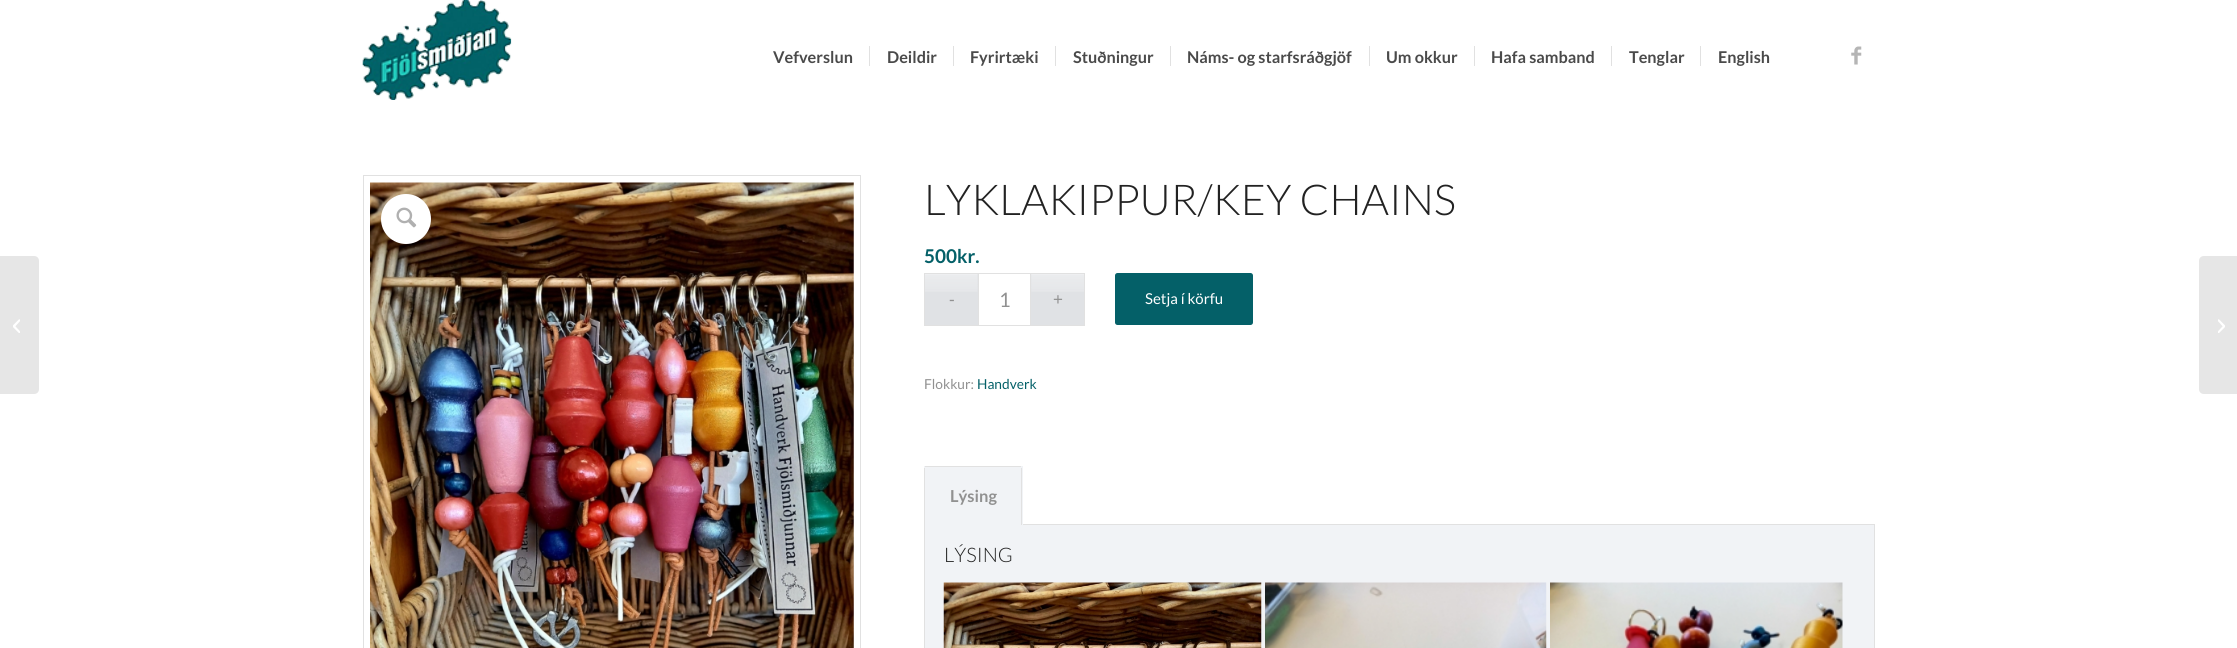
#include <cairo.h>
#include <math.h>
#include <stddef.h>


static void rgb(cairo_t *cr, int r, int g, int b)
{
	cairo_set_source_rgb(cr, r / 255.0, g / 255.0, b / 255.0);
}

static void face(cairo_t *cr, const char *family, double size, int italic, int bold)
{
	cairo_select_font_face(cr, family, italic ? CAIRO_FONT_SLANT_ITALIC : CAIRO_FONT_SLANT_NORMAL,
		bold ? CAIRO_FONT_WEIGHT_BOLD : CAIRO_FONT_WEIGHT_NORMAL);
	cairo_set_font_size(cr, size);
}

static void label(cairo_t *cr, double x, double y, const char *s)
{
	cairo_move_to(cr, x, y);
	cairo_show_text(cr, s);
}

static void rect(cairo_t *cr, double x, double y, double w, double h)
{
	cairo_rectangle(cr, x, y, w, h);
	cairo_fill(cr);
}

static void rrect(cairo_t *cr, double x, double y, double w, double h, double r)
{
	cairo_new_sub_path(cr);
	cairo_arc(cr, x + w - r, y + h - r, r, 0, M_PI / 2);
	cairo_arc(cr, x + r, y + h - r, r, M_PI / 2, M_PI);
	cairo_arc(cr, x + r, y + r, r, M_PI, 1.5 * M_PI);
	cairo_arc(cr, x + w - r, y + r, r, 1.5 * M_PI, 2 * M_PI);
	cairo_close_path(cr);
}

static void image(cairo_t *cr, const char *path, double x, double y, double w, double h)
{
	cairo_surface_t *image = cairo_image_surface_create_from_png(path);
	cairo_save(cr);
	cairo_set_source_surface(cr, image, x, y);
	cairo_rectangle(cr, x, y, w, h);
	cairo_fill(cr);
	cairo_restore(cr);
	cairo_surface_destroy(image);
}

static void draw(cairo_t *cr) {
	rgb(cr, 255, 255, 255);
	cairo_paint(cr);
	image(cr, "image0.png", 362, 0, 150, 100);
	face(cr, "Lato", 16.25, 0, 1);
	rgb(cr, 74, 74, 74);
	label(cr, 773, 63, "Vefverslun");
	label(cr, 887, 63, "Deildir");
	rgb(cr, 225, 225, 225);
	rect(cr, 869, 46, 1, 20);
	rgb(cr, 74, 74, 74);
	label(cr, 970, 63, "Fyrirtæki");
	rgb(cr, 225, 225, 225);
	rect(cr, 953, 46, 1, 20);
	rgb(cr, 74, 74, 74);
	label(cr, 1073, 63, "Stuðningur");
	rgb(cr, 225, 225, 225);
	rect(cr, 1055, 46, 1, 20);
	rgb(cr, 74, 74, 74);
	label(cr, 1187, 63, "Náms- og starfsráðgjöf");
	rgb(cr, 225, 225, 225);
	rect(cr, 1170, 46, 1, 20);
	rgb(cr, 74, 74, 74);
	label(cr, 1386, 63, "Um okkur");
	rgb(cr, 225, 225, 225);
	rect(cr, 1369, 46, 1, 20);
	rgb(cr, 74, 74, 74);
	label(cr, 1491, 63, "Hafa samband");
	rgb(cr, 225, 225, 225);
	rect(cr, 1474, 46, 1, 20);
	rgb(cr, 74, 74, 74);
	label(cr, 1629, 63, "Tenglar");
	rgb(cr, 225, 225, 225);
	rect(cr, 1611, 46, 1, 20);
	rgb(cr, 74, 74, 74);
	label(cr, 1718, 63, "English");
	rgb(cr, 225, 225, 225);
	rect(cr, 1700, 46, 1, 20);
	image(cr, "image1.png", 1851, 46, 11, 19);
	rgb(cr, 230, 230, 230);
	cairo_new_path(cr);
	cairo_move_to(cr, 0, 256);
	cairo_line_to(cr, 34, 256);
	cairo_curve_to(cr, 37, 256, 39, 258, 39, 261);
	cairo_line_to(cr, 39, 389);
	cairo_curve_to(cr, 39, 392, 37, 394, 34, 394);
	cairo_line_to(cr, 0, 394);
	cairo_close_path(cr);
	cairo_fill(cr);
	image(cr, "image2.png", 13, 319, 7, 14);
	cairo_rectangle(cr, 363.5, 175.5, 497, 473);
	rgb(cr, 225, 225, 225);
	cairo_set_line_width(cr, 1);
	cairo_stroke(cr);
	image(cr, "image3.png", 370, 182, 484, 466);
	rgb(cr, 255, 255, 255);
	cairo_arc(cr, 406, 219, 25, 0, 2 * M_PI);
	cairo_fill(cr);
	image(cr, "image4.png", 396, 207, 21, 21);
	face(cr, "Lato Light", 42.5, 0, 0);
	rgb(cr, 34, 34, 34);
	label(cr, 924, 215, "LYKLAKIPPUR/KEY CHAINS");
	face(cr, "Lato", 19, 0, 1);
	rgb(cr, 4, 96, 104);
	label(cr, 924, 263, "500kr.");
	rgb(cr, 224, 226, 229);
	rect(cr, 925, 274, 53, 51);
	image(cr, "image5.png", 925, 274, 53, 18);
	rect(cr, 1031, 274, 53, 51);
	image(cr, "image6.png", 1031, 274, 53, 18);
	face(cr, "Liberation Sans", 17, 0, 0);
	rgb(cr, 145, 145, 145);
	label(cr, 949, 305, "-");
	rgb(cr, 225, 225, 225);
	rect(cr, 924, 273, 54, 1);
	rect(cr, 924, 325, 54, 1);
	rect(cr, 924, 273, 1, 53);
	cairo_rectangle(cr, 978.5, 273.5, 52, 52);
	cairo_stroke(cr);
	face(cr, "Lato", 20, 0, 0);
	rgb(cr, 145, 145, 145);
	label(cr, 999, 307, "1");
	face(cr, "Liberation Sans", 17, 0, 0);
	label(cr, 1053, 305, "+");
	rgb(cr, 225, 225, 225);
	rect(cr, 1031, 273, 54, 1);
	rect(cr, 1084, 273, 1, 53);
	rect(cr, 1031, 325, 54, 1);
	rgb(cr, 4, 96, 104);
	rrect(cr, 1115, 273, 138, 52, 2.5);
	cairo_fill(cr);
	face(cr, "Lato", 15, 0, 0);
	rgb(cr, 255, 255, 255);
	label(cr, 1145, 304, "Setja í körfu");
	face(cr, "Lato", 13.75, 0, 0);
	rgb(cr, 145, 145, 145);
	label(cr, 924, 389, "Flokkur:");
	rgb(cr, 4, 96, 104);
	label(cr, 977, 389, "Handverk");
	rgb(cr, 241, 243, 246);
	cairo_rectangle(cr, 924.5, 524.5, 950, 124);
	cairo_fill_preserve(cr);
	rgb(cr, 225, 225, 225);
	cairo_stroke(cr);
	rgb(cr, 241, 243, 246);
	rect(cr, 924, 466, 99, 59);
	rgb(cr, 225, 225, 225);
	rect(cr, 925, 466, 96, 1);
	rect(cr, 1021, 468, 1, 57);
	rect(cr, 924, 468, 1, 57);
	face(cr, "Lato", 16.5, 0, 1);
	rgb(cr, 145, 145, 145);
	label(cr, 950, 502, "Lýsing");
	face(cr, "Lato Light", 20, 0, 0);
	rgb(cr, 34, 34, 34);
	label(cr, 944, 562, "LÝSING");
	image(cr, "image7.png", 943, 582, 319, 66);
	image(cr, "image8.png", 1265, 582, 282, 66);
	image(cr, "image9.png", 1550, 582, 293, 66);
	rgb(cr, 230, 230, 230);
	cairo_new_path(cr);
	cairo_move_to(cr, 2204, 256);
	cairo_line_to(cr, 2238, 256);
	cairo_line_to(cr, 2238, 394);
	cairo_line_to(cr, 2204, 394);
	cairo_curve_to(cr, 2201, 394, 2199, 392, 2199, 389);
	cairo_line_to(cr, 2199, 261);
	cairo_curve_to(cr, 2199, 258, 2201, 256, 2204, 256);
	cairo_close_path(cr);
	cairo_fill(cr);
	image(cr, "image10.png", 2218, 319, 7, 14);
}

int main(void) {
	cairo_surface_t *surface = cairo_image_surface_create(CAIRO_FORMAT_RGB24, 2237, 648);
	cairo_t *cr = cairo_create(surface);
	cairo_font_options_t *options = cairo_font_options_create();
	cairo_font_options_set_hint_metrics(options, CAIRO_HINT_METRICS_OFF);
	cairo_font_options_set_hint_style(options, CAIRO_HINT_STYLE_NONE);
	cairo_set_font_options(cr, options);
	cairo_set_miter_limit(cr, 4);
	draw(cr);
	cairo_surface_write_to_png(surface, "render.png");
	cairo_font_options_destroy(options);
	cairo_destroy(cr);
	cairo_surface_destroy(surface);
	return 0;
}
